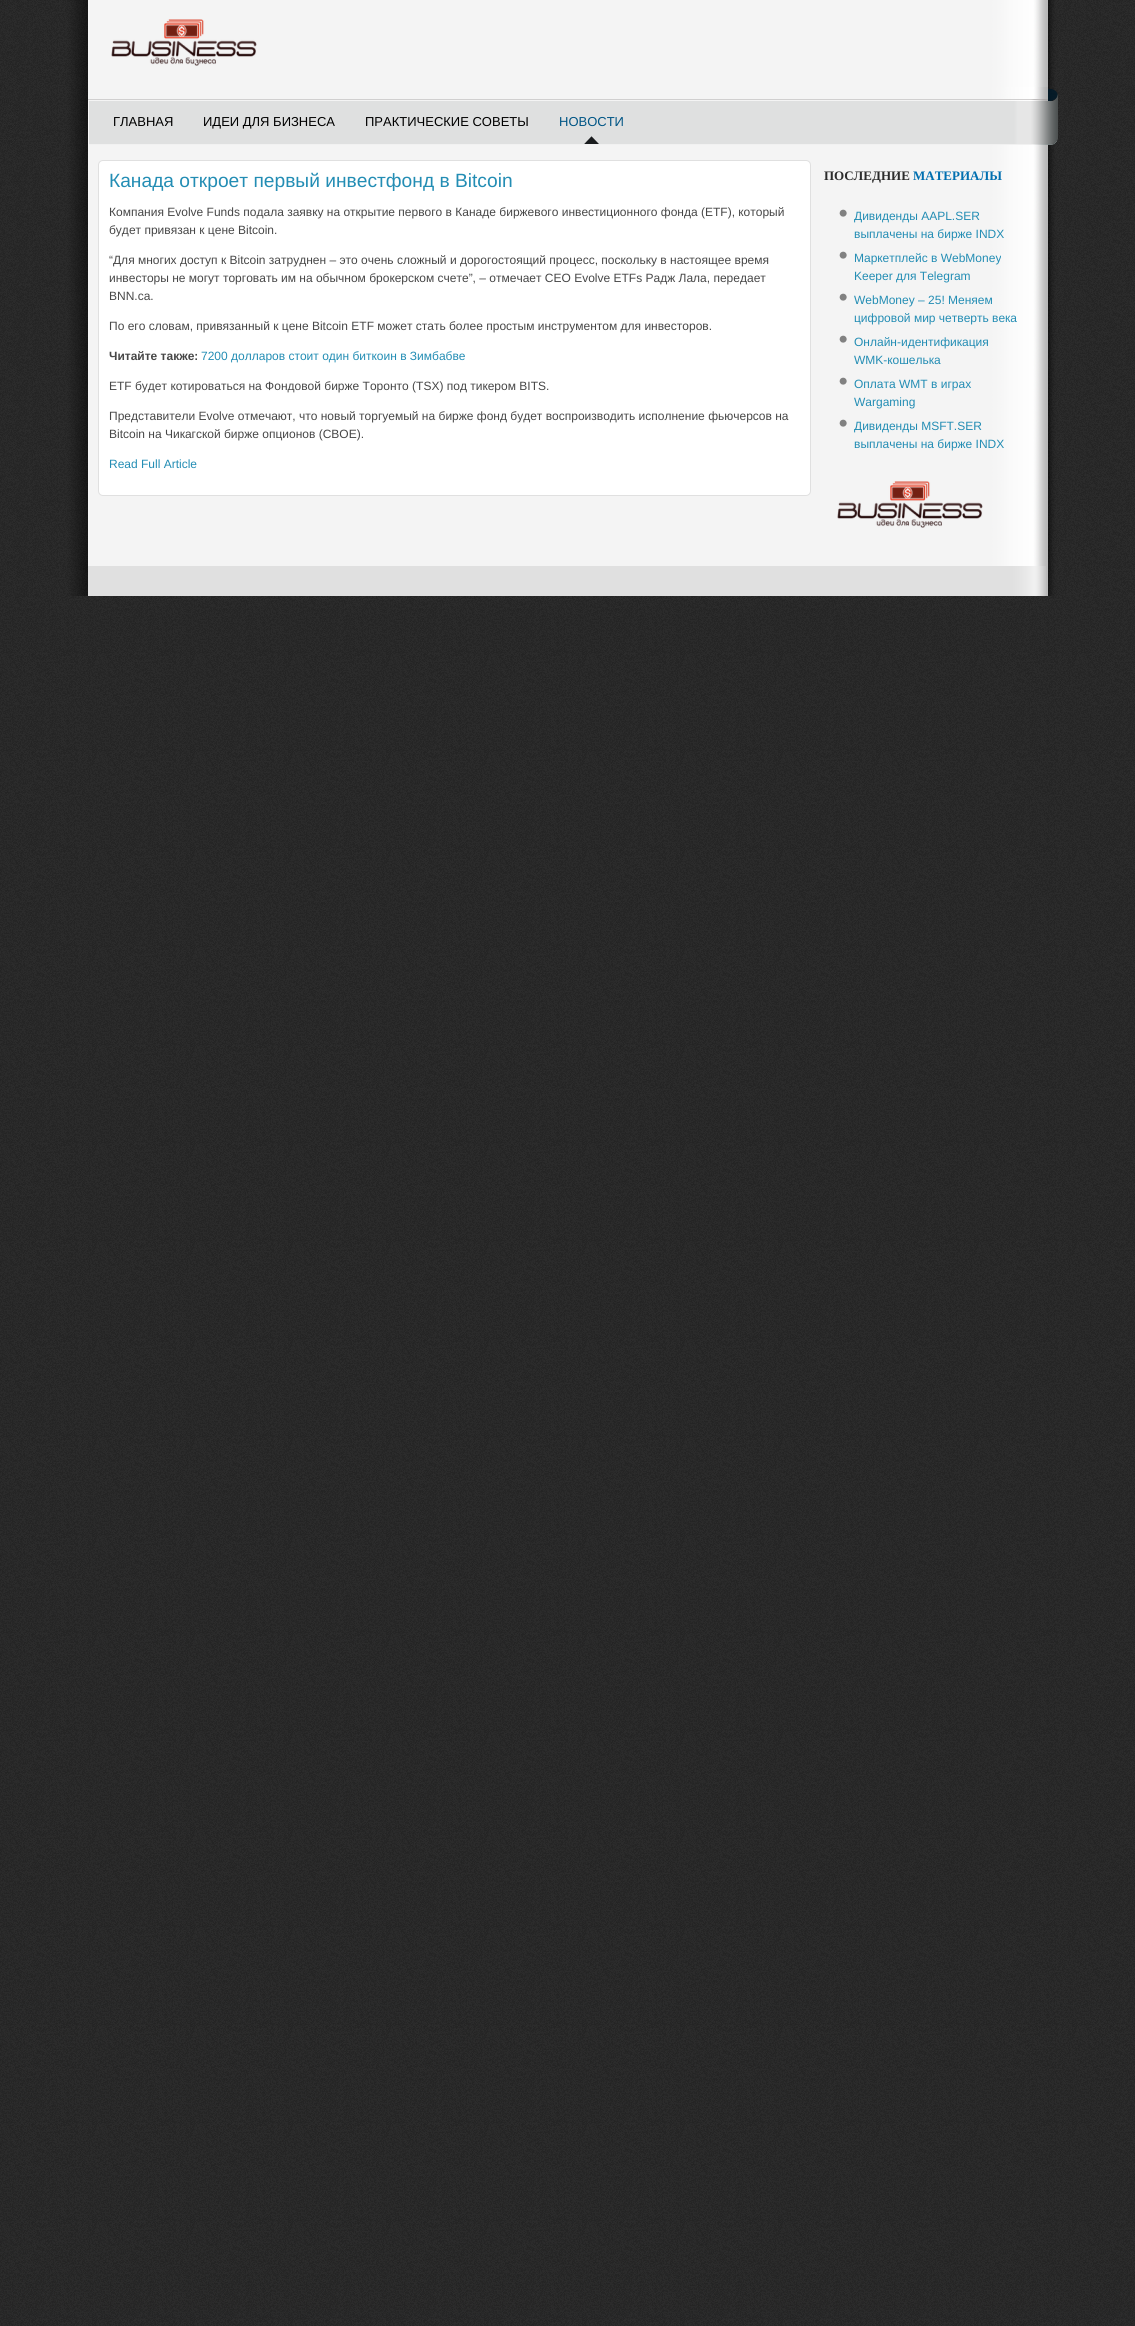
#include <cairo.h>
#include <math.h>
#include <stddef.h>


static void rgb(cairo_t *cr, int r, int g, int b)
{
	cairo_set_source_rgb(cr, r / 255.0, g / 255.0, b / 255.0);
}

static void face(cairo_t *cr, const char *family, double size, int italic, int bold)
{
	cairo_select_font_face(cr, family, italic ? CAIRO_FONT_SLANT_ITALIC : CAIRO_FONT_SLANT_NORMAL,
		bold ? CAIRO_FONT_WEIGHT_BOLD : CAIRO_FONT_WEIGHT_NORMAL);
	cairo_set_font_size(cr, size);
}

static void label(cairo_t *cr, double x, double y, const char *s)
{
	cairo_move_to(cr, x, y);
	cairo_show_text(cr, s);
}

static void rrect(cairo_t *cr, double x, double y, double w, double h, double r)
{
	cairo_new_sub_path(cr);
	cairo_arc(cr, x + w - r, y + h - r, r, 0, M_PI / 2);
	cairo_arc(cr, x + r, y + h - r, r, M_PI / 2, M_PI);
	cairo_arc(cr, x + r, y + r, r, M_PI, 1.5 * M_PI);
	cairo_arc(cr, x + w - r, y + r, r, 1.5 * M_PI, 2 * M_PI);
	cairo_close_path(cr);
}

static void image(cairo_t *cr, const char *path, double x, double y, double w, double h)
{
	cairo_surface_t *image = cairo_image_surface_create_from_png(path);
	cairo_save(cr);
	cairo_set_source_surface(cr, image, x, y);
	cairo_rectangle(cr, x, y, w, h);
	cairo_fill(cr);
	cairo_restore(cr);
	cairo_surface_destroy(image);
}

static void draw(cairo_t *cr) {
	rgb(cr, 255, 255, 255);
	cairo_paint(cr);
	image(cr, "image0.png", 0, 0, 1135, 2326);
	image(cr, "image1.png", 4, 0, 1128, 87);
	image(cr, "image2.png", 111, 19, 146, 47);
	image(cr, "image3.png", 3, 87, 1130, 58);
	face(cr, "Liberation Sans", 13, 0, 0);
	rgb(cr, 0, 0, 0);
	label(cr, 113, 126, "ГЛАВНАЯ");
	label(cr, 203, 126, "ИДЕИ ДЛЯ БИЗНЕСА");
	label(cr, 365, 126, "ПРАКТИЧЕСКИЕ СОВЕТЫ");
	image(cr, "image4.png", 584, 136, 15, 8);
	rgb(cr, 0, 85, 133);
	label(cr, 559, 126, "НОВОСТИ");
	image(cr, "image5.png", 4, 145, 1128, 421);
	rgb(cr, 255, 255, 255);
	rrect(cr, 98.5, 160.5, 712, 335, 4.5);
	cairo_fill_preserve(cr);
	rgb(cr, 224, 224, 224);
	cairo_set_line_width(cr, 1);
	cairo_stroke(cr);
	face(cr, "Liberation Sans", 19.2, 0, 0);
	rgb(cr, 35, 141, 180);
	label(cr, 109, 187, "Канада откроет первый инвестфонд в Bitcoin");
	face(cr, "Liberation Sans", 12, 0, 0);
	rgb(cr, 71, 71, 71);
	label(cr, 109, 216, "Компания Evolve Funds подала заявку на открытие первого в Канаде биржевого инвестиционного фонда (ETF), который");
	label(cr, 109, 234, "будет привязан к цене Bitcoin.");
	label(cr, 109, 264, "“Для многих доступ к Bitcoin затруднен – это очень сложный и дорогостоящий процесс, поскольку в настоящее время");
	label(cr, 109, 282, "инвесторы не могут торговать им на обычном брокерском счете”, – отмечает CEO Evolve ETFs Радж Лала, передает");
	label(cr, 109, 300, "BNN.ca.");
	label(cr, 109, 330, "По его словам, привязанный к цене Bitcoin ETF может стать более простым инструментом для инвесторов.");
	face(cr, "Liberation Sans", 12, 0, 1);
	label(cr, 109, 360, "Читайте также:");
	face(cr, "Liberation Sans", 12, 0, 0);
	rgb(cr, 35, 141, 180);
	label(cr, 201, 360, "7200 долларов стоит один биткоин в Зимбабве");
	rgb(cr, 71, 71, 71);
	label(cr, 109, 390, "ETF будет котироваться на Фондовой бирже Торонто (TSX) под тикером BITS.");
	label(cr, 109, 420, "Представители Evolve отмечают, что новый торгуемый на бирже фонд будет воспроизводить исполнение фьючерсов на");
	label(cr, 109, 438, "Bitcoin на Чикагской бирже опционов (CBOE).");
	rgb(cr, 35, 141, 180);
	label(cr, 109, 468, "Read Full Article");
	face(cr, "Liberation Serif", 13, 0, 1);
	rgb(cr, 43, 43, 43);
	label(cr, 824, 180, "ПОСЛЕДНИЕ");
	rgb(cr, 0, 111, 176);
	label(cr, 913, 180, "МАТЕРИАЛЫ");
	image(cr, "image6.png", 839, 209, 8, 8);
	face(cr, "Liberation Sans", 12, 0, 0);
	rgb(cr, 35, 141, 180);
	label(cr, 854, 220, "Дивиденды AAPL.SER");
	label(cr, 854, 238, "выплачены на бирже INDX");
	image(cr, "image6.png", 839, 251, 8, 8);
	label(cr, 854, 262, "Маркетплейс в WebMoney");
	label(cr, 854, 280, "Keeper для Telegram");
	image(cr, "image6.png", 839, 293, 8, 8);
	label(cr, 854, 304, "WebMoney – 25! Меняем");
	label(cr, 854, 322, "цифровой мир четверть века");
	image(cr, "image6.png", 839, 335, 8, 8);
	label(cr, 854, 346, "Онлайн-идентификация");
	label(cr, 854, 364, "WMK-кошелька");
	image(cr, "image6.png", 839, 377, 8, 8);
	label(cr, 854, 388, "Оплата WMT в играх");
	label(cr, 854, 406, "Wargaming");
	image(cr, "image6.png", 839, 419, 8, 8);
	label(cr, 854, 430, "Дивиденды MSFT.SER");
	label(cr, 854, 448, "выплачены на бирже INDX");
	image(cr, "image2.png", 837, 481, 146, 47);
	image(cr, "image7.png", 4, 566, 1128, 30);
	image(cr, "image8.png", 88, 566, 958, 30);
}

int main(void) {
	cairo_surface_t *surface = cairo_image_surface_create(CAIRO_FORMAT_RGB24, 1135, 2326);
	cairo_t *cr = cairo_create(surface);
	cairo_font_options_t *options = cairo_font_options_create();
	cairo_font_options_set_hint_metrics(options, CAIRO_HINT_METRICS_OFF);
	cairo_font_options_set_hint_style(options, CAIRO_HINT_STYLE_NONE);
	cairo_set_font_options(cr, options);
	cairo_set_miter_limit(cr, 4);
	draw(cr);
	cairo_surface_write_to_png(surface, "render.png");
	cairo_font_options_destroy(options);
	cairo_destroy(cr);
	cairo_surface_destroy(surface);
	return 0;
}
